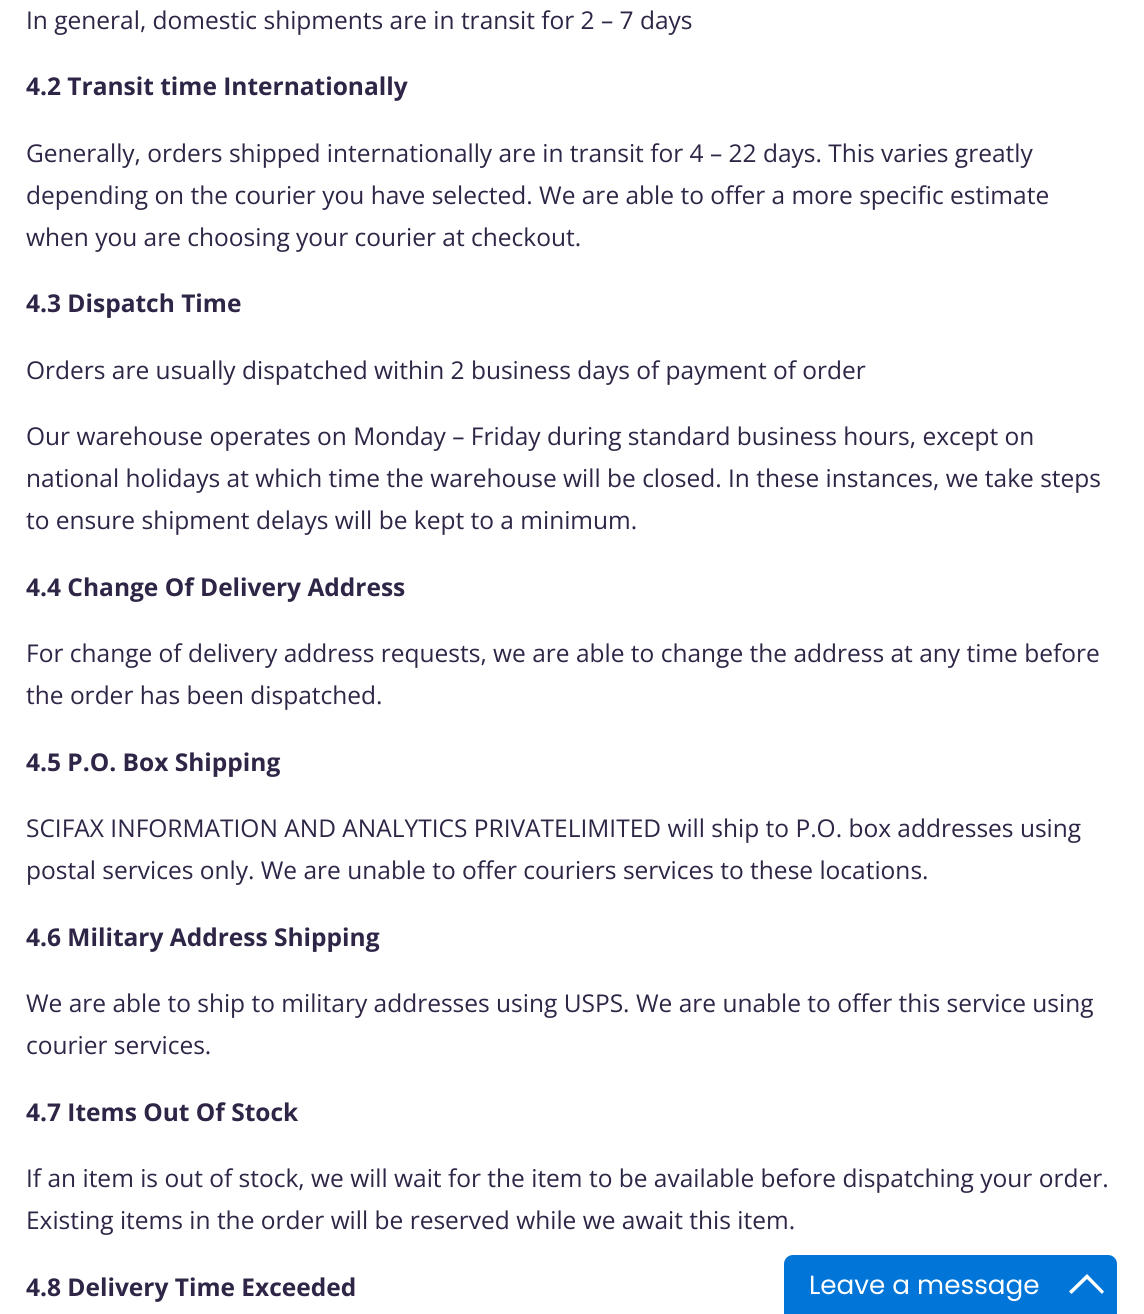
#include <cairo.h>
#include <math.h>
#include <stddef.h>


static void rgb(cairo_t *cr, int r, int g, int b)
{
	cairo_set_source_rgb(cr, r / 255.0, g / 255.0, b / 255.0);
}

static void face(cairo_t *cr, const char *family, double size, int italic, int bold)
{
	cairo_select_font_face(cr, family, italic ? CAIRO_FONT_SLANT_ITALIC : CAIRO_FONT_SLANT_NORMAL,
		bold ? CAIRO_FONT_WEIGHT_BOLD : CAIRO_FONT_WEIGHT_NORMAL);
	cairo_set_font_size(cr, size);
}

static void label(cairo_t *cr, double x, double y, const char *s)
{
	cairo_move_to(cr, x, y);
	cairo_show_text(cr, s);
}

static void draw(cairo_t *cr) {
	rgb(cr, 255, 255, 255);
	cairo_paint(cr);
	face(cr, "Open Sans", 24.5, 0, 0);
	rgb(cr, 47, 37, 70);
	label(cr, 26, 29, "In general, domestic shipments are in transit for 2 – 7 days");
	face(cr, "Open Sans", 24.5, 0, 1);
	label(cr, 26, 95, "4.2 Transit time Internationally");
	face(cr, "Open Sans", 24.5, 0, 0);
	label(cr, 26, 162, "Generally, orders shipped internationally are in transit for 4 – 22 days. This varies greatly");
	label(cr, 26, 204, "depending on the courier you have selected. We are able to offer a more specific estimate");
	label(cr, 26, 246, "when you are choosing your courier at checkout.");
	face(cr, "Open Sans", 24.5, 0, 1);
	label(cr, 26, 312, "4.3 Dispatch Time");
	face(cr, "Open Sans", 24.5, 0, 0);
	label(cr, 26, 379, "Orders are usually dispatched within 2 business days of payment of order");
	label(cr, 26, 445, "Our warehouse operates on Monday – Friday during standard business hours, except on");
	label(cr, 26, 487, "national holidays at which time the warehouse will be closed. In these instances, we take steps");
	label(cr, 26, 529, "to ensure shipment delays will be kept to a minimum.");
	face(cr, "Open Sans", 24.5, 0, 1);
	label(cr, 26, 596, "4.4 Change Of Delivery Address");
	face(cr, "Open Sans", 24.5, 0, 0);
	label(cr, 26, 662, "For change of delivery address requests, we are able to change the address at any time before");
	label(cr, 26, 704, "the order has been dispatched.");
	face(cr, "Open Sans", 24.5, 0, 1);
	label(cr, 26, 771, "4.5 P.O. Box Shipping");
	face(cr, "Open Sans", 24.5, 0, 0);
	label(cr, 26, 837, "SCIFAX INFORMATION AND ANALYTICS PRIVATELIMITED will ship to P.O. box addresses using");
	label(cr, 26, 879, "postal services only. We are unable to offer couriers services to these locations.");
	face(cr, "Open Sans", 24.5, 0, 1);
	label(cr, 26, 946, "4.6 Military Address Shipping");
	face(cr, "Open Sans", 24.5, 0, 0);
	label(cr, 26, 1012, "We are able to ship to military addresses using USPS. We are unable to offer this service using");
	label(cr, 26, 1054, "courier services.");
	face(cr, "Open Sans", 24.5, 0, 1);
	label(cr, 26, 1121, "4.7 Items Out Of Stock");
	face(cr, "Open Sans", 24.5, 0, 0);
	label(cr, 26, 1187, "If an item is out of stock, we will wait for the item to be available before dispatching your order.");
	label(cr, 26, 1229, "Existing items in the order will be reserved while we await this item.");
	face(cr, "Open Sans", 24.5, 0, 1);
	label(cr, 26, 1296, "4.8 Delivery Time Exceeded");
	rgb(cr, 2, 117, 216);
	cairo_new_path(cr);
	cairo_move_to(cr, 793, 1255);
	cairo_line_to(cr, 1108, 1255);
	cairo_curve_to(cr, 1113, 1255, 1117, 1259, 1117, 1264);
	cairo_line_to(cr, 1117, 1314);
	cairo_line_to(cr, 784, 1314);
	cairo_line_to(cr, 784, 1264);
	cairo_curve_to(cr, 784, 1259, 788, 1255, 793, 1255);
	cairo_close_path(cr);
	cairo_fill(cr);
	face(cr, "Poppins", 26.25, 0, 0);
	rgb(cr, 255, 255, 255);
	label(cr, 809, 1294, "Leave a message");
	cairo_new_path(cr);
	cairo_move_to(cr, 1087, 1274);
	cairo_line_to(cr, 1104, 1291.5);
	cairo_line_to(cr, 1102, 1294);
	cairo_line_to(cr, 1087, 1279);
	cairo_line_to(cr, 1071.5, 1294);
	cairo_line_to(cr, 1069, 1291.5);
	cairo_close_path(cr);
	cairo_fill(cr);
}

int main(void) {
	cairo_surface_t *surface = cairo_image_surface_create(CAIRO_FORMAT_RGB24, 1144, 1314);
	cairo_t *cr = cairo_create(surface);
	cairo_font_options_t *options = cairo_font_options_create();
	cairo_font_options_set_hint_metrics(options, CAIRO_HINT_METRICS_OFF);
	cairo_font_options_set_hint_style(options, CAIRO_HINT_STYLE_NONE);
	cairo_set_font_options(cr, options);
	cairo_set_miter_limit(cr, 4);
	draw(cr);
	cairo_surface_write_to_png(surface, "render.png");
	cairo_font_options_destroy(options);
	cairo_destroy(cr);
	cairo_surface_destroy(surface);
	return 0;
}
